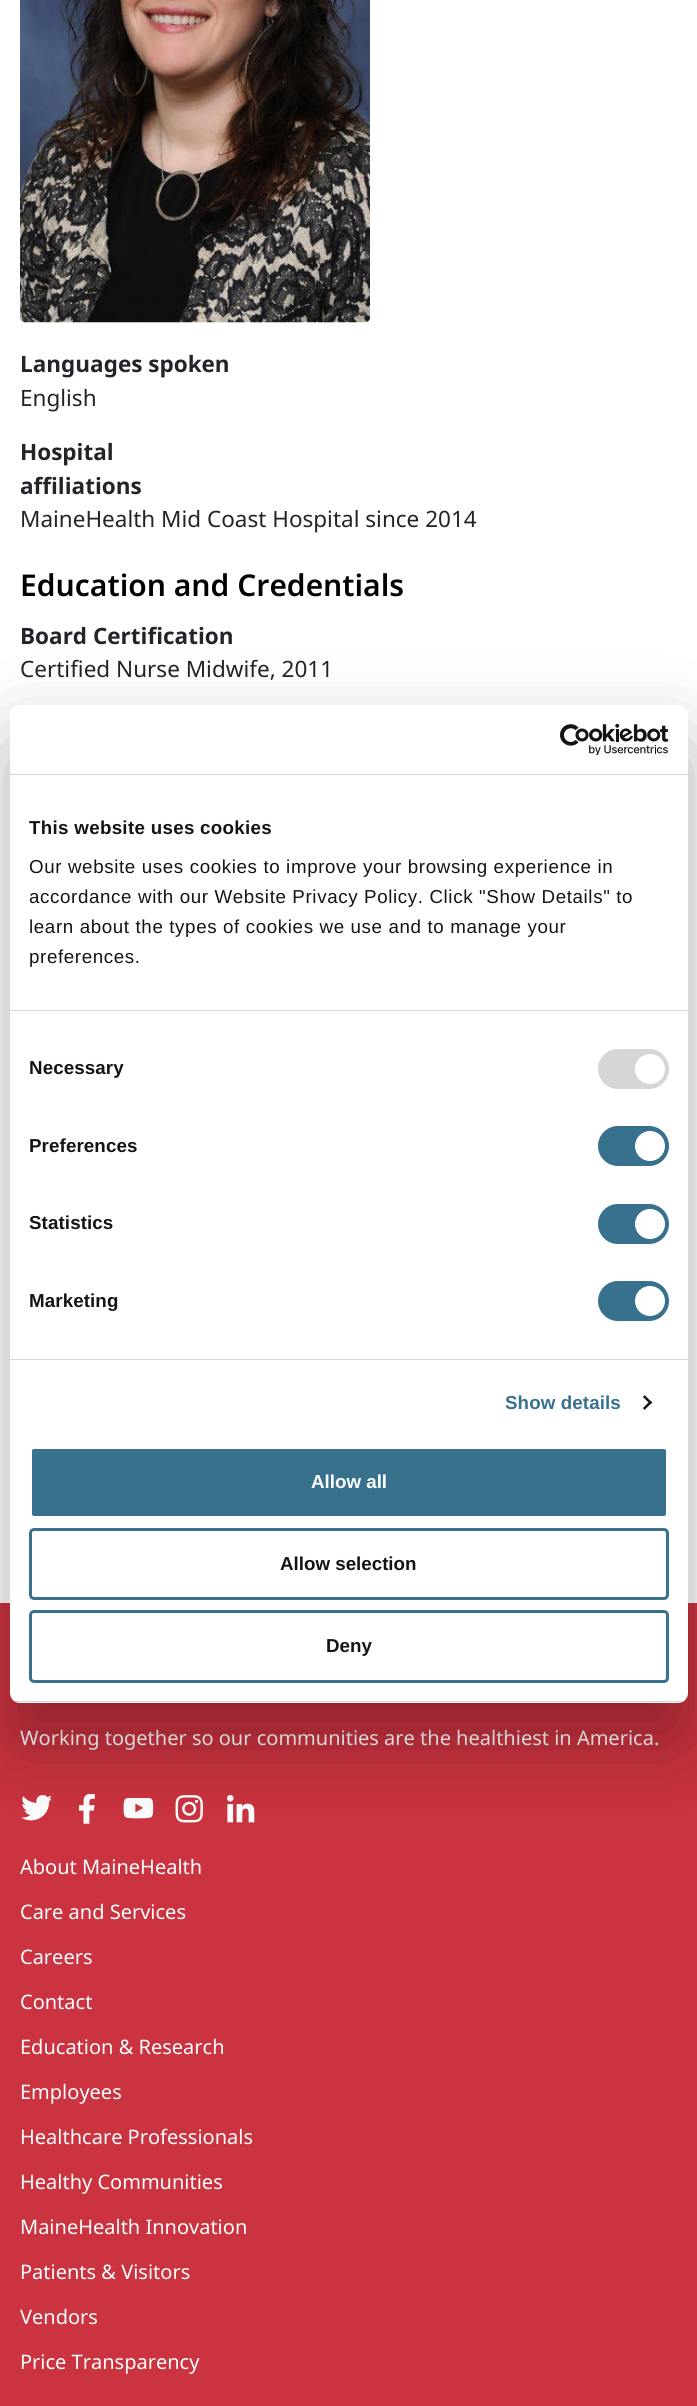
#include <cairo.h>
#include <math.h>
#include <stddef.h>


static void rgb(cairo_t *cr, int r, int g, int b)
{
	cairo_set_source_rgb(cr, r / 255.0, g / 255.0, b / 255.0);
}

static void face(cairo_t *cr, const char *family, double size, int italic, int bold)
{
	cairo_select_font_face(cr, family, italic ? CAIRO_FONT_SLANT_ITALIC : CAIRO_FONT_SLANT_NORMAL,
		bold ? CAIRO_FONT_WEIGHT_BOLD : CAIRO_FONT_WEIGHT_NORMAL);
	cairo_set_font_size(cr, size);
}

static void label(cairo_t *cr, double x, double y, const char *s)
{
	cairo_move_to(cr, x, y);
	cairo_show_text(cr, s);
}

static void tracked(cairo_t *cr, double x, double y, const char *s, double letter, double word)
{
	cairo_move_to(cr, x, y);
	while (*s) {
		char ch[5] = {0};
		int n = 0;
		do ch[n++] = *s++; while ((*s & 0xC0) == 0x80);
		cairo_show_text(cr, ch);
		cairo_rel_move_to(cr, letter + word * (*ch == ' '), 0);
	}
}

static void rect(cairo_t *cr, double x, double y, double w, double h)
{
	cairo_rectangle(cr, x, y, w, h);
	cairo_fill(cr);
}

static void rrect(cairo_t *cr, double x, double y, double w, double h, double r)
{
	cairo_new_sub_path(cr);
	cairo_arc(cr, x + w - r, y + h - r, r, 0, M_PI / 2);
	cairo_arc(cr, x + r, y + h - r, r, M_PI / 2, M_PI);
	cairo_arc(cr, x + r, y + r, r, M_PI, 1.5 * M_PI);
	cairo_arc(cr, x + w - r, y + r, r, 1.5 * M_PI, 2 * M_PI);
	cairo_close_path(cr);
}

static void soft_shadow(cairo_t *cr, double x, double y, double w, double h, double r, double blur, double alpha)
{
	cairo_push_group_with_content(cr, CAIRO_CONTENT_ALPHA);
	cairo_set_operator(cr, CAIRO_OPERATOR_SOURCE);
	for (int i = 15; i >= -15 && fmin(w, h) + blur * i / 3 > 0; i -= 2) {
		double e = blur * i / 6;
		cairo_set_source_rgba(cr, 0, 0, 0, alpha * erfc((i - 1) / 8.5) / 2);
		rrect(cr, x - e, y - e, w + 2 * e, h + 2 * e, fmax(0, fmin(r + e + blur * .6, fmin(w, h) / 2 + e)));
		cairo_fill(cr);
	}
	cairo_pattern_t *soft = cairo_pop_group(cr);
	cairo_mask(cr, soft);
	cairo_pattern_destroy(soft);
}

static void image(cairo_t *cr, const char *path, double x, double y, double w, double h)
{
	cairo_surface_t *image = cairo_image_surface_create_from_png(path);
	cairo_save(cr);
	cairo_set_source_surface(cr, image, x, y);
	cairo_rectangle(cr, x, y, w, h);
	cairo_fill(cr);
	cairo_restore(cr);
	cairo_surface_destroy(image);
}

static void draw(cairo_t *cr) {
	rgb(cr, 255, 255, 255);
	cairo_paint(cr);
	image(cr, "image0.png", 20, 0, 350, 323);
	face(cr, "Noto Sans", 22.5, 0, 1);
	rgb(cr, 33, 37, 41);
	label(cr, 20, 372, "Languages spoken");
	face(cr, "Noto Sans", 22.5, 0, 0);
	label(cr, 20, 406, "English");
	face(cr, "Noto Sans", 22.5, 0, 1);
	label(cr, 20, 460, "Hospital");
	label(cr, 20, 494, "affiliations");
	face(cr, "Noto Sans", 22.5, 0, 0);
	label(cr, 20, 527, "MaineHealth Mid Coast Hospital since 2014");
	face(cr, "Noto Sans SemiBold", 30, 0, 0);
	rgb(cr, 0, 0, 0);
	label(cr, 20, 596, "Education and Credentials");
	face(cr, "Noto Sans", 22.5, 0, 1);
	rgb(cr, 33, 37, 41);
	label(cr, 20, 644, "Board Certification");
	face(cr, "Noto Sans", 22.5, 0, 0);
	label(cr, 20, 677, "Certified Nurse Midwife, 2011");
	rgb(cr, 203, 51, 64);
	rect(cr, 0, 1603, 697, 803);
	face(cr, "Noto Sans", 20, 0, 0);
	rgb(cr, 255, 255, 255);
	label(cr, 20, 1745, "Working together so our communities are the healthiest in America.");
	image(cr, "image1.png", 21, 1795, 30, 26);
	image(cr, "image2.png", 79, 1794, 16, 30);
	image(cr, "image3.png", 123, 1798, 31, 21);
	image(cr, "image4.png", 175, 1795, 28, 28);
	image(cr, "image5.png", 227, 1795, 28, 28);
	label(cr, 20, 1874, "About MaineHealth");
	label(cr, 20, 1919, "Care and Services");
	label(cr, 20, 1964, "Careers");
	label(cr, 20, 2009, "Contact");
	label(cr, 20, 2054, "Education & Research");
	label(cr, 20, 2099, "Employees");
	label(cr, 20, 2144, "Healthcare Professionals");
	label(cr, 20, 2189, "Healthy Communities");
	label(cr, 20, 2234, "MaineHealth Innovation");
	label(cr, 20, 2279, "Patients & Visitors");
	label(cr, 20, 2324, "Vendors");
	label(cr, 20, 2369, "Price Transparency");
	rgb(cr, 0, 0, 0);
	soft_shadow(cr, 10, 745, 678, 998, 10, 42.5, 0.3);
	rgb(cr, 255, 255, 255);
	rrect(cr, 10, 705, 678, 998, 10);
	cairo_fill(cr);
	rgb(cr, 214, 214, 214);
	rect(cr, 10, 774, 678, 1);
	image(cr, "image6.png", 560, 724, 109, 31);
	rect(cr, 10, 1010, 678, 1);
	face(cr, "Liberation Sans", 18.75, 0, 1);
	rgb(cr, 20, 20, 20);
	tracked(cr, 29, 834, "This website uses cookies", 0.3, 0);
	face(cr, "Liberation Sans", 18.75, 0, 0);
	tracked(cr, 29, 873, "Our website uses cookies to improve your browsing experience in", 0.62, 0);
	tracked(cr, 29, 903, "accordance with our Website Privacy Policy. Click \"Show Details\" to", 0.62, 0);
	tracked(cr, 29, 933, "learn about the types of cookies we use and to manage your", 0.62, 0);
	tracked(cr, 29, 963, "preferences.", 0.62, 0);
	rgb(cr, 214, 214, 214);
	rect(cr, 10, 1359, 678, 1);
	face(cr, "Liberation Sans", 18.75, 0, 1);
	rgb(cr, 20, 20, 20);
	tracked(cr, 29, 1074, "Necessary", 0.1, 0);
	rgb(cr, 214, 214, 214);
	rrect(cr, 598, 1049, 71, 40, 20);
	cairo_fill(cr);
	rgb(cr, 255, 255, 255);
	cairo_arc(cr, 650, 1069, 15, 0, 2 * M_PI);
	cairo_fill(cr);
	rgb(cr, 20, 20, 20);
	tracked(cr, 29, 1152, "Preferences", 0.1, 0);
	rgb(cr, 55, 113, 142);
	rrect(cr, 598, 1126, 71, 40, 20);
	cairo_fill(cr);
	rgb(cr, 255, 255, 255);
	cairo_arc(cr, 650, 1146, 15, 0, 2 * M_PI);
	cairo_fill(cr);
	rgb(cr, 20, 20, 20);
	tracked(cr, 29, 1229, "Statistics", 0.1, 0);
	rgb(cr, 55, 113, 142);
	rrect(cr, 598, 1204, 71, 40, 20);
	cairo_fill(cr);
	rgb(cr, 255, 255, 255);
	cairo_arc(cr, 650, 1224, 15, 0, 2 * M_PI);
	cairo_fill(cr);
	rgb(cr, 20, 20, 20);
	tracked(cr, 29, 1307, "Marketing", 0.1, 0);
	rgb(cr, 55, 113, 142);
	rrect(cr, 598, 1281, 71, 40, 20);
	cairo_fill(cr);
	rgb(cr, 255, 255, 255);
	cairo_arc(cr, 650, 1301, 15, 0, 2 * M_PI);
	cairo_fill(cr);
	rgb(cr, 55, 113, 142);
	tracked(cr, 505, 1409, "Show details", 0.1, 0);
	rgb(cr, 20, 20, 20);
	cairo_new_path(cr);
	cairo_move_to(cr, 644.5, 1395);
	cairo_line_to(cr, 652, 1402.5);
	cairo_line_to(cr, 650.5, 1404.5);
	cairo_line_to(cr, 643, 1397);
	cairo_close_path(cr);
	cairo_fill(cr);
	cairo_new_path(cr);
	cairo_move_to(cr, 650.5, 1400.5);
	cairo_line_to(cr, 652, 1402.5);
	cairo_line_to(cr, 644.5, 1410);
	cairo_line_to(cr, 643, 1408);
	cairo_close_path(cr);
	cairo_fill(cr);
	cairo_save(cr);
	rrect(cr, 10, 705, 678, 998, 10);
	cairo_clip(cr);
	rgb(cr, 214, 214, 214);
	rect(cr, 10, 1701, 678, 1);
	cairo_restore(cr);
	rgb(cr, 55, 113, 142);
	rrect(cr, 30.5, 1447.5, 637, 70, 3.5);
	cairo_fill_preserve(cr);
	rgb(cr, 255, 255, 255);
	cairo_set_line_width(cr, 3);
	cairo_stroke(cr);
	label(cr, 311, 1488, "Allow all");
	rrect(cr, 30.5, 1529.5, 637, 69, 3.5);
	rgb(cr, 55, 113, 142);
	cairo_stroke(cr);
	rgb(cr, 20, 20, 20);
	label(cr, 280, 1570, "Allow selection");
	rrect(cr, 30.5, 1611.5, 637, 70, 3.5);
	rgb(cr, 55, 113, 142);
	cairo_stroke(cr);
	rgb(cr, 20, 20, 20);
	label(cr, 326, 1652, "Deny");
}

int main(void) {
	cairo_surface_t *surface = cairo_image_surface_create(CAIRO_FORMAT_RGB24, 697, 2406);
	cairo_t *cr = cairo_create(surface);
	cairo_font_options_t *options = cairo_font_options_create();
	cairo_font_options_set_hint_metrics(options, CAIRO_HINT_METRICS_OFF);
	cairo_font_options_set_hint_style(options, CAIRO_HINT_STYLE_NONE);
	cairo_set_font_options(cr, options);
	cairo_set_miter_limit(cr, 4);
	draw(cr);
	cairo_surface_write_to_png(surface, "render.png");
	cairo_font_options_destroy(options);
	cairo_destroy(cr);
	cairo_surface_destroy(surface);
	return 0;
}
